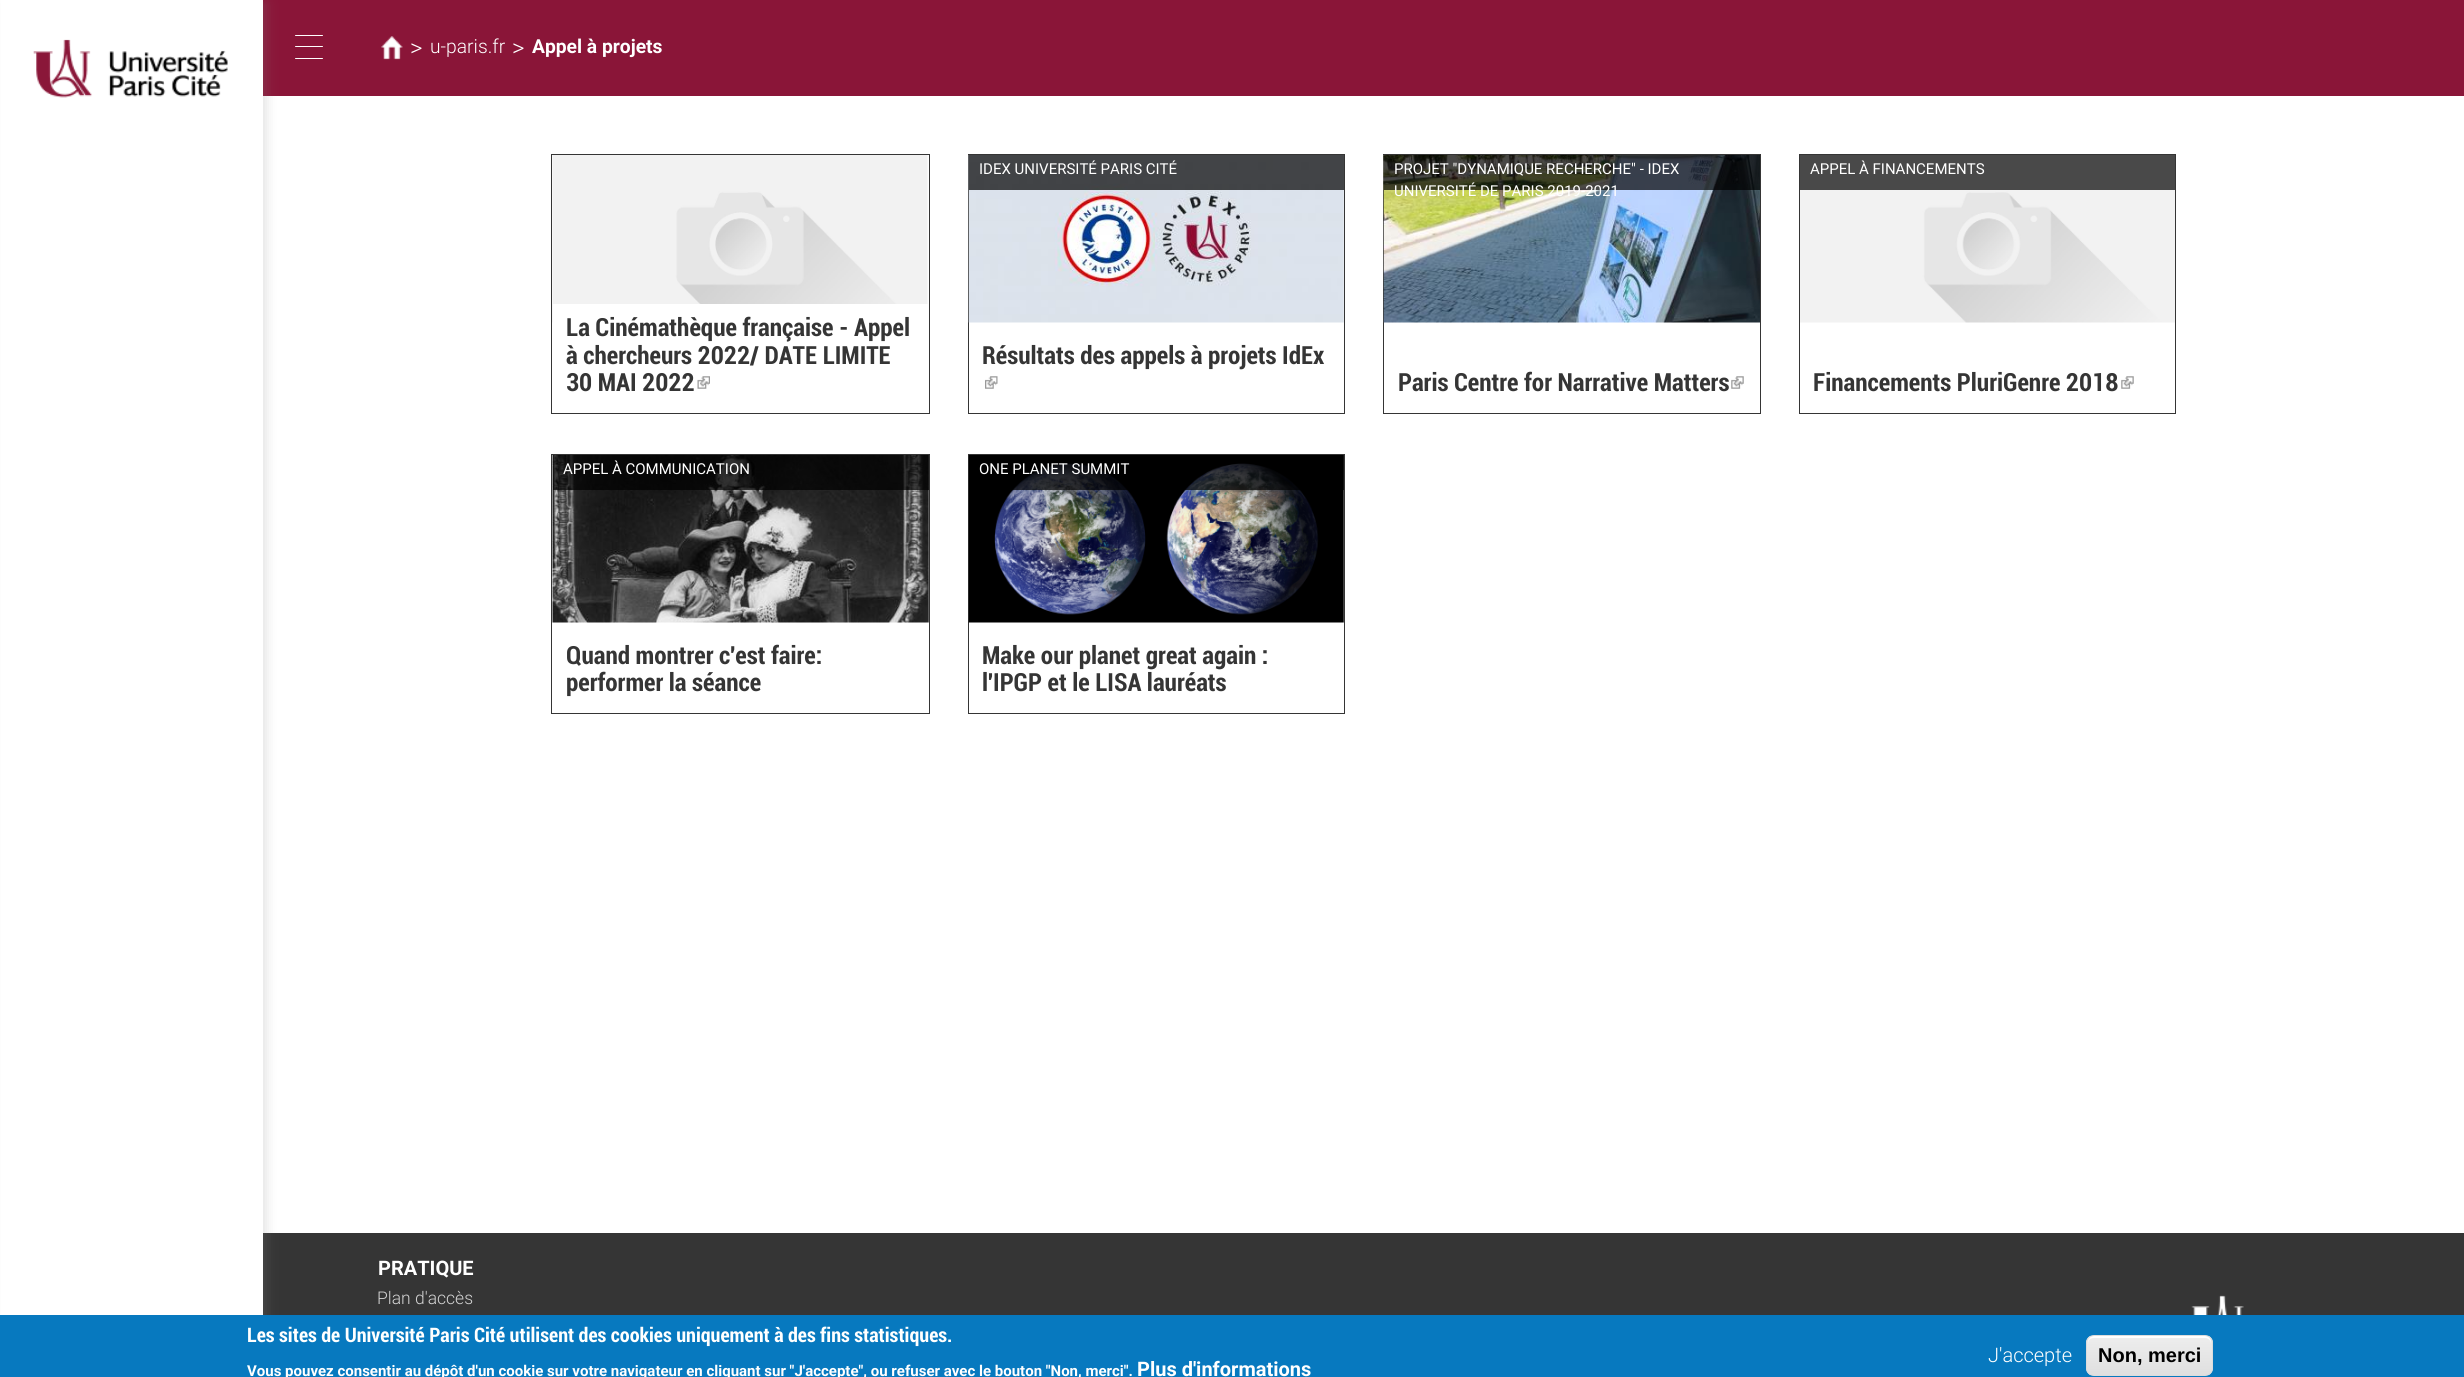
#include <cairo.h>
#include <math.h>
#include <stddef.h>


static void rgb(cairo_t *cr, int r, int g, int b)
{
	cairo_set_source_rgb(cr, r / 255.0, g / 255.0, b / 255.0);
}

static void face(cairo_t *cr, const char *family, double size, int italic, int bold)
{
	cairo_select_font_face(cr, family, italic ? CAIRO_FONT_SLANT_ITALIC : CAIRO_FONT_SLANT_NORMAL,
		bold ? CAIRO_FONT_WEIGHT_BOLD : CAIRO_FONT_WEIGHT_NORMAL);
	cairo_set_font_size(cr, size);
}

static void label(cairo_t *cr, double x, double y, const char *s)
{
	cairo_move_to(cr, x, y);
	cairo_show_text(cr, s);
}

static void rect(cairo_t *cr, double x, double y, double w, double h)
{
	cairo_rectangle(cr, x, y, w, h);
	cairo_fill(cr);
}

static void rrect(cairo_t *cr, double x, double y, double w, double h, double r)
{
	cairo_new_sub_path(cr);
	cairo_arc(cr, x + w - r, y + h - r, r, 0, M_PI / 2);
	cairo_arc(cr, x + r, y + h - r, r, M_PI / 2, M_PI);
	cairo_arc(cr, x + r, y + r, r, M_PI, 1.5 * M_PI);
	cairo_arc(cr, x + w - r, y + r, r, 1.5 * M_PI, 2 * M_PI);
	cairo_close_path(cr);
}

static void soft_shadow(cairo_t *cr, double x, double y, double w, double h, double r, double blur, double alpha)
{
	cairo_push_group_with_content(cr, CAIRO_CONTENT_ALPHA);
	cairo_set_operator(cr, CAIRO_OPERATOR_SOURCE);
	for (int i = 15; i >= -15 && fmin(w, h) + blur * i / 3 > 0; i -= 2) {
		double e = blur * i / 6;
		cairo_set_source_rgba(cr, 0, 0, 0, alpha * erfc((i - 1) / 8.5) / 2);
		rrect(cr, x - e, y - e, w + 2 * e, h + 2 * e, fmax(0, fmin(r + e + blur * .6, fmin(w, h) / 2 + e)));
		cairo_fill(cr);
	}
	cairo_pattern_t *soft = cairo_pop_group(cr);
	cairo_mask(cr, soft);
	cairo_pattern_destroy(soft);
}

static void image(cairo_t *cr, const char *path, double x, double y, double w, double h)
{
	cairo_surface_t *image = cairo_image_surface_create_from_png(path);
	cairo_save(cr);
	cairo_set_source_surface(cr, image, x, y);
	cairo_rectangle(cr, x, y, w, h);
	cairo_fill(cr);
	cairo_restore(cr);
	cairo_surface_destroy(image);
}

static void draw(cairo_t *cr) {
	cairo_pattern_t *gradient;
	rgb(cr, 255, 255, 255);
	cairo_paint(cr);
	rgb(cr, 138, 21, 56);
	rect(cr, 263, 0, 2201, 96);
	rgb(cr, 53, 53, 53);
	rect(cr, 263, 1233, 2201, 82);
	rgb(cr, 136, 136, 136);
	soft_shadow(cr, 9, 3, 257, 1372, 0, 6, 0.25);
	rgb(cr, 255, 255, 255);
	rect(cr, 1, 0, 262, 1315);
	image(cr, "image0.png", 33, 39, 195, 59);
	rrect(cr, 295, 35, 28, 1, 0.5);
	cairo_fill(cr);
	rrect(cr, 295, 46, 28, 1, 0.5);
	cairo_fill(cr);
	rrect(cr, 295, 58, 28, 1, 0.5);
	cairo_fill(cr);
	image(cr, "image1.png", 381, 36, 22, 24);
	face(cr, "Roboto Light", 24, 0, 0);
	label(cr, 410, 56, ">");
	face(cr, "Roboto Light", 19.25, 0, 0);
	label(cr, 430, 53, "u-paris.fr");
	face(cr, "Roboto Light", 24, 0, 0);
	label(cr, 512, 56, ">");
	face(cr, "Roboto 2", 19.25, 0, 1);
	label(cr, 532, 53, "Appel à projets");
	cairo_rectangle(cr, 551.5, 154.5, 378, 259);
	rgb(cr, 53, 53, 53);
	cairo_set_line_width(cr, 1);
	cairo_stroke(cr);
	image(cr, "image2.png", 552, 155, 376, 168);
	rgb(cr, 255, 255, 255);
	rect(cr, 553, 304, 375, 19);
	face(cr, "Roboto", 25, 0, 1);
	rgb(cr, 53, 53, 53);
	label(cr, 566, 336, "La Cinémathèque française - Appel");
	label(cr, 566, 364, "à chercheurs 2022/ DATE LIMITE");
	label(cr, 566, 391, "30 MAI 2022");
	image(cr, "image3.png", 697, 376, 13, 13);
	cairo_rectangle(cr, 968.5, 154.5, 376, 259);
	cairo_stroke(cr);
	image(cr, "image4.png", 968, 155, 376, 168);
	cairo_set_source_rgba(cr, 0, 0, 0, 0.7);
	rect(cr, 969, 155, 375, 35);
	face(cr, "Roboto", 15, 0, 0);
	rgb(cr, 255, 255, 255);
	label(cr, 979, 174, "IDEX UNIVERSITÉ PARIS CITÉ");
	face(cr, "Roboto", 25, 0, 1);
	rgb(cr, 53, 53, 53);
	label(cr, 982, 364, "Résultats des appels à projets IdEx");
	image(cr, "image5.png", 985, 376, 13, 13);
	cairo_rectangle(cr, 1383.5, 154.5, 377, 259);
	cairo_stroke(cr);
	image(cr, "image6.png", 1383, 155, 377, 168);
	cairo_set_source_rgba(cr, 0, 0, 0, 0.7);
	rect(cr, 1384, 155, 376, 35);
	face(cr, "Roboto", 15, 0, 0);
	rgb(cr, 255, 255, 255);
	label(cr, 1394, 174, "PROJET \"DYNAMIQUE RECHERCHE\" - IDEX");
	label(cr, 1394, 196, "UNIVERSITÉ DE PARIS 2019-2021");
	face(cr, "Roboto", 25, 0, 1);
	rgb(cr, 53, 53, 53);
	label(cr, 1398, 391, "Paris Centre for Narrative Matters");
	image(cr, "image7.png", 1731, 376, 13, 13);
	cairo_rectangle(cr, 1799.5, 154.5, 376, 259);
	cairo_stroke(cr);
	rgb(cr, 73, 73, 73);
	rect(cr, 1800, 155, 375, 35);
	face(cr, "Roboto", 15, 0, 0);
	rgb(cr, 255, 255, 255);
	label(cr, 1810, 174, "APPEL À FINANCEMENTS");
	image(cr, "image8.png", 1800, 190, 375, 133);
	face(cr, "Roboto", 25, 0, 1);
	rgb(cr, 53, 53, 53);
	label(cr, 1813, 391, "Financements PluriGenre 2018");
	image(cr, "image7.png", 2121, 376, 13, 13);
	cairo_rectangle(cr, 551.5, 454.5, 378, 259);
	cairo_stroke(cr);
	image(cr, "image9.png", 552, 455, 377, 168);
	cairo_set_source_rgba(cr, 0, 0, 0, 0.7);
	rect(cr, 553, 455, 376, 35);
	face(cr, "Roboto", 15, 0, 0);
	rgb(cr, 255, 255, 255);
	label(cr, 563, 474, "APPEL À COMMUNICATION");
	face(cr, "Roboto", 25, 0, 1);
	rgb(cr, 53, 53, 53);
	label(cr, 566, 664, "Quand montrer c'est faire:");
	label(cr, 566, 691, "performer la séance");
	cairo_rectangle(cr, 968.5, 454.5, 376, 259);
	cairo_stroke(cr);
	image(cr, "image10.png", 968, 455, 376, 168);
	cairo_set_source_rgba(cr, 0, 0, 0, 0.7);
	rect(cr, 1012, 455, 332, 35);
	face(cr, "Roboto", 15, 0, 0);
	rgb(cr, 255, 255, 255);
	label(cr, 979, 474, "ONE PLANET SUMMIT");
	face(cr, "Roboto", 25, 0, 1);
	rgb(cr, 53, 53, 53);
	label(cr, 982, 664, "Make our planet great again :");
	label(cr, 982, 691, "l'IPGP et le LISA lauréats");
	face(cr, "Roboto 2", 20, 0, 1);
	rgb(cr, 255, 255, 255);
	label(cr, 378, 1275, "PRATIQUE");
	face(cr, "Roboto Light", 17.5, 0, 0);
	rgb(cr, 210, 210, 210);
	label(cr, 377, 1304, "Plan d'accès");
	image(cr, "image11.png", 2191, 1295, 53, 20);
	rgb(cr, 7, 121, 191);
	rect(cr, 0, 1315, 2464, 62);
	face(cr, "Roboto", 20, 0, 1);
	rgb(cr, 255, 255, 255);
	label(cr, 247, 1342, "Les sites de Université Paris Cité utilisent des cookies uniquement à des fins statistiques.");
	face(cr, "Roboto 2", 15, 0, 1);
	label(cr, 247, 1376, "Vous pouvez consentir au dépôt d'un cookie sur votre navigateur en cliquant sur \"J'accepte\", ou refuser avec le bouton \"Non, merci\".");
	face(cr, "Roboto 2", 20, 0, 1);
	label(cr, 1137, 1376, "Plus d'informations");
	face(cr, "Roboto Light", 20, 0, 0);
	label(cr, 1988, 1362, "J'accepte");
	cairo_save(cr);
	rrect(cr, 2086, 1335, 127, 41, 8);
	cairo_clip(cr);
	gradient = cairo_pattern_create_linear(2149, 1336, 2149, 1375);
	cairo_pattern_add_color_stop_rgba(gradient, 0.05, 0.929, 0.929, 0.929, 1);
	cairo_pattern_add_color_stop_rgba(gradient, 1, 0.875, 0.875, 0.875, 1);
	cairo_set_source(cr, gradient);
	cairo_pattern_destroy(gradient);
	rect(cr, 2086, 1336, 127, 39);
	cairo_restore(cr);
	cairo_new_path(cr);
	cairo_move_to(cr, 2094, 1338);
	cairo_line_to(cr, 2205, 1338);
	cairo_curve_to(cr, 2208, 1338, 2211, 1340, 2211, 1344);
	cairo_line_to(cr, 2211, 1342);
	cairo_curve_to(cr, 2211, 1339, 2208, 1336, 2205, 1336);
	cairo_line_to(cr, 2094, 1336);
	cairo_curve_to(cr, 2091, 1336, 2088, 1339, 2088, 1342);
	cairo_line_to(cr, 2088, 1344);
	cairo_curve_to(cr, 2088, 1340, 2090, 1338, 2094, 1338);
	cairo_close_path(cr);
	cairo_fill(cr);
	rrect(cr, 2086.5, 1335.5, 126, 40, 7.5);
	rgb(cr, 220, 220, 220);
	cairo_stroke(cr);
	face(cr, "Liberation Sans", 20, 0, 1);
	rgb(cr, 0, 0, 0);
	label(cr, 2098, 1362, "Non, merci");
}

int main(void) {
	cairo_surface_t *surface = cairo_image_surface_create(CAIRO_FORMAT_RGB24, 2464, 1377);
	cairo_t *cr = cairo_create(surface);
	cairo_font_options_t *options = cairo_font_options_create();
	cairo_font_options_set_hint_metrics(options, CAIRO_HINT_METRICS_OFF);
	cairo_font_options_set_hint_style(options, CAIRO_HINT_STYLE_NONE);
	cairo_set_font_options(cr, options);
	cairo_set_miter_limit(cr, 4);
	draw(cr);
	cairo_surface_write_to_png(surface, "render.png");
	cairo_font_options_destroy(options);
	cairo_destroy(cr);
	cairo_surface_destroy(surface);
	return 0;
}
